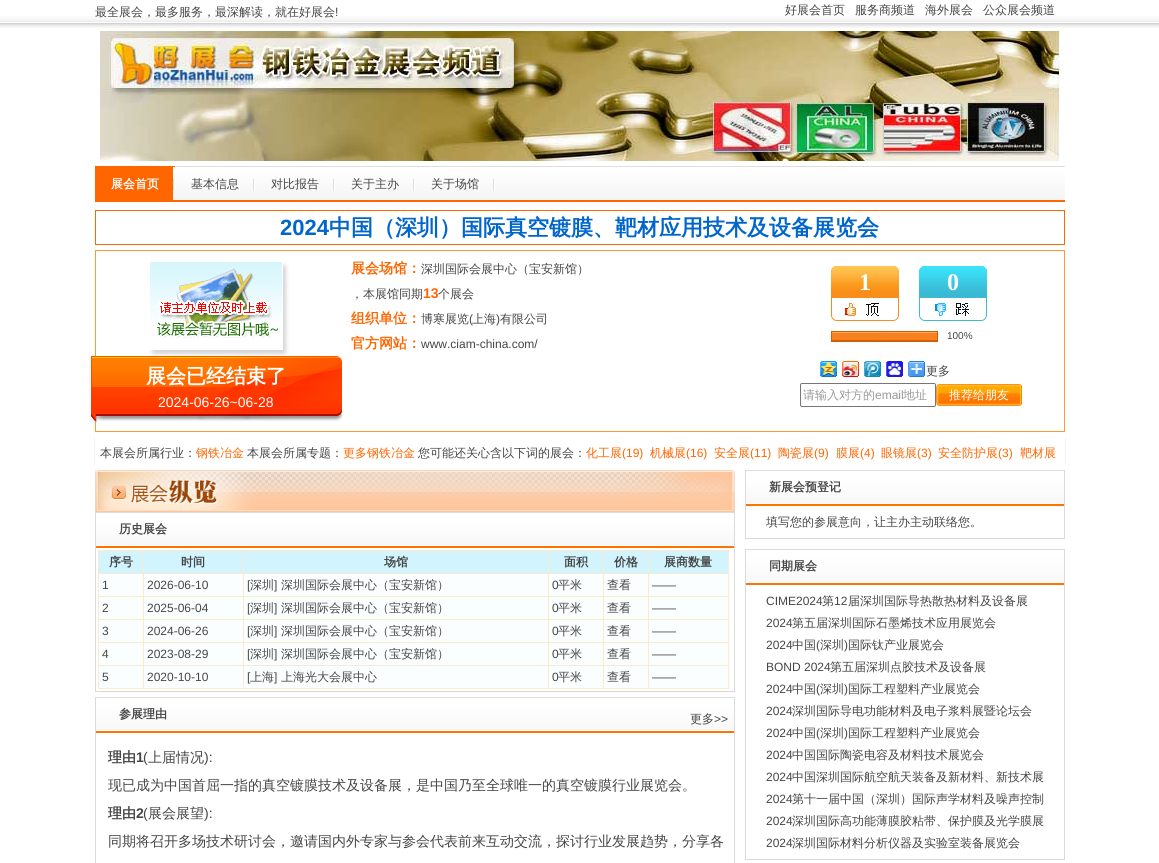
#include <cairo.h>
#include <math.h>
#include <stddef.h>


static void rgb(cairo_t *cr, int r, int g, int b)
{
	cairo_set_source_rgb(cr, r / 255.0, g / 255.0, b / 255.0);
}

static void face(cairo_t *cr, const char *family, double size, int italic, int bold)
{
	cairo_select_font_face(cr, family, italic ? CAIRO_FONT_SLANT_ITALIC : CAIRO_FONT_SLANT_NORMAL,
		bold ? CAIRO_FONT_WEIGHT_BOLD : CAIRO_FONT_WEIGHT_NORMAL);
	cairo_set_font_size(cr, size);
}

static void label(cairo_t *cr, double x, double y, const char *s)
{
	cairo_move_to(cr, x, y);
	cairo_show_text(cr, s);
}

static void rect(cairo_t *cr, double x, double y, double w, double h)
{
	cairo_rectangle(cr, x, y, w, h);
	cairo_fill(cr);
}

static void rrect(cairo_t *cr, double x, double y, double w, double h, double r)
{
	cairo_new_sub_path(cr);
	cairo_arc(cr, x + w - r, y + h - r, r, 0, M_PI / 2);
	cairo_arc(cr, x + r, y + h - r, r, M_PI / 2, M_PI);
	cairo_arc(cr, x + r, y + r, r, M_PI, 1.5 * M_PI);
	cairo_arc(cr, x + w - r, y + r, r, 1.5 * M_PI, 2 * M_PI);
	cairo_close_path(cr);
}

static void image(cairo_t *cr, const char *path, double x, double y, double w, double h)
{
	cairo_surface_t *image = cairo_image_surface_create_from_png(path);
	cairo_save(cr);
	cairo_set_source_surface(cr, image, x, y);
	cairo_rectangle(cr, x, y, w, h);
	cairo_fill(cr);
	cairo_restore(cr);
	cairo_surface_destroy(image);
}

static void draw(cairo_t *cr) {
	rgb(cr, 255, 255, 255);
	cairo_paint(cr);
	image(cr, "image0.png", 0, 16, 1159, 12);
	face(cr, "WenQuanYi Zen Hei Medium", 12, 0, 0);
	rgb(cr, 69, 69, 69);
	label(cr, 95, 16, "最全展会，最多服务，最深解读，就在好展会");
	face(cr, "Liberation Sans", 12, 0, 0);
	label(cr, 335, 16, "!");
	face(cr, "WenQuanYi Zen Hei Medium", 12, 0, 0);
	label(cr, 785, 14, "好展会首页");
	label(cr, 855, 14, "服务商频道");
	label(cr, 925, 14, "海外展会");
	label(cr, 983, 14, "公众展会频道");
	image(cr, "image1.png", 100, 31, 960, 130);
	rgb(cr, 255, 102, 0);
	rect(cr, 175, 200, 890, 2);
	image(cr, "image2.png", 175, 166, 890, 34);
	rect(cr, 95, 166, 80, 36);
	image(cr, "image3.png", 173, 167, 2, 33);
	face(cr, "WenQuanYi Zen Hei", 12, 0, 1);
	rgb(cr, 255, 255, 255);
	label(cr, 111, 188, "展会首页");
	image(cr, "image4.png", 253, 179, 2, 12);
	face(cr, "WenQuanYi Zen Hei Medium", 12, 0, 0);
	rgb(cr, 69, 69, 69);
	label(cr, 191, 188, "基本信息");
	image(cr, "image4.png", 333, 179, 2, 12);
	label(cr, 271, 188, "对比报告");
	image(cr, "image4.png", 413, 179, 2, 12);
	label(cr, 351, 188, "关于主办");
	image(cr, "image4.png", 493, 179, 2, 12);
	label(cr, 431, 188, "关于场馆");
	cairo_rectangle(cr, 95.5, 210.5, 969, 34);
	rgb(cr, 255, 102, 0);
	cairo_set_line_width(cr, 1);
	cairo_stroke(cr);
	face(cr, "Liberation Sans", 22, 0, 1);
	rgb(cr, 0, 102, 204);
	label(cr, 280, 235, "2024");
	face(cr, "WenQuanYi Zen Hei", 22, 0, 1);
	label(cr, 329, 235, "中国（深圳）国际真空镀膜、靶材应用技术及设备展览会");
	cairo_rectangle(cr, 95.5, 250.5, 969, 181);
	rgb(cr, 255, 153, 51);
	cairo_stroke(cr);
	image(cr, "image5.png", 149, 262, 140, 94);
	image(cr, "image6.png", 91, 356, 251, 66);
	face(cr, "WenQuanYi Zen Hei", 20, 0, 1);
	rgb(cr, 255, 255, 255);
	label(cr, 146, 383, "展会已经结束了");
	face(cr, "Liberation Sans", 14, 0, 0);
	label(cr, 158, 407, "2024-06-26~06-28");
	face(cr, "WenQuanYi Zen Hei", 14, 0, 1);
	rgb(cr, 255, 102, 0);
	label(cr, 351, 273, "展会场馆：");
	face(cr, "WenQuanYi Zen Hei Medium", 12, 0, 0);
	rgb(cr, 69, 69, 69);
	label(cr, 421, 273, "深圳国际会展中心（宝安新馆）");
	label(cr, 351, 298, "，本展馆同期");
	face(cr, "Liberation Sans", 14, 0, 1);
	rgb(cr, 255, 102, 0);
	label(cr, 423, 298, "13");
	face(cr, "WenQuanYi Zen Hei Medium", 12, 0, 0);
	rgb(cr, 69, 69, 69);
	label(cr, 438, 298, "个展会");
	face(cr, "WenQuanYi Zen Hei", 14, 0, 1);
	rgb(cr, 255, 102, 0);
	label(cr, 351, 323, "组织单位：");
	face(cr, "WenQuanYi Zen Hei Medium", 12, 0, 0);
	rgb(cr, 69, 69, 69);
	label(cr, 421, 323, "博寒展览");
	face(cr, "Liberation Sans", 12, 0, 0);
	label(cr, 469, 323, "(");
	face(cr, "WenQuanYi Zen Hei Medium", 12, 0, 0);
	label(cr, 472, 323, "上海");
	face(cr, "Liberation Sans", 12, 0, 0);
	label(cr, 496, 323, ")");
	face(cr, "WenQuanYi Zen Hei Medium", 12, 0, 0);
	label(cr, 500, 323, "有限公司");
	face(cr, "WenQuanYi Zen Hei", 14, 0, 1);
	rgb(cr, 255, 102, 0);
	label(cr, 351, 348, "官方网站：");
	face(cr, "Liberation Sans", 12, 0, 0);
	rgb(cr, 69, 69, 69);
	label(cr, 421, 348, "www.ciam-china.com/");
	image(cr, "image7.png", 831, 266, 68, 55);
	face(cr, "Liberation Serif", 24, 0, 1);
	rgb(cr, 255, 255, 255);
	label(cr, 859, 290, "1");
	image(cr, "image8.png", 919, 266, 68, 55);
	label(cr, 947, 290, "0");
	image(cr, "image9.png", 831, 328, 107, 16);
	image(cr, "image10.png", 832, 332, 105, 9);
	cairo_rectangle(cr, 831.5, 331.5, 106, 10);
	rgb(cr, 206, 97, 7);
	cairo_stroke(cr);
	face(cr, "Liberation Sans", 10, 0, 0);
	rgb(cr, 69, 69, 69);
	label(cr, 947, 339, "100%");
	image(cr, "image11.png", 820, 361, 17, 16);
	image(cr, "image12.png", 842, 361, 17, 16);
	image(cr, "image13.png", 864, 361, 17, 16);
	image(cr, "image14.png", 886, 361, 17, 16);
	image(cr, "image15.png", 908, 361, 17, 16);
	face(cr, "WenQuanYi Zen Hei Medium", 12, 0, 0);
	label(cr, 926, 375, "更多");
	rrect(cr, 800.5, 383.5, 135, 23, 1.5);
	rgb(cr, 118, 118, 118);
	cairo_stroke(cr);
	rgb(cr, 153, 153, 153);
	label(cr, 803, 399, "请输入对方的");
	face(cr, "Liberation Sans", 12, 0, 0);
	label(cr, 875, 399, "email");
	face(cr, "WenQuanYi Zen Hei Medium", 12, 0, 0);
	label(cr, 903, 399, "地址");
	image(cr, "image16.png", 936, 384, 86, 22);
	rgb(cr, 255, 255, 255);
	label(cr, 949, 399, "推荐给朋友");
	rgb(cr, 242, 242, 242);
	rect(cr, 1065, 437, 1, 28);
	rect(cr, 94, 437, 1, 28);
	rgb(cr, 69, 69, 69);
	label(cr, 100, 457, "本展会所属行业：");
	rgb(cr, 255, 102, 0);
	label(cr, 196, 457, "钢铁冶金");
	rgb(cr, 69, 69, 69);
	label(cr, 247, 457, "本展会所属专题：");
	rgb(cr, 255, 102, 0);
	label(cr, 343, 457, "更多钢铁冶金");
	rgb(cr, 69, 69, 69);
	label(cr, 418, 457, "您可能还关心含以下词的展会：");
	rgb(cr, 255, 102, 0);
	label(cr, 586, 457, "化工展");
	face(cr, "Liberation Sans", 12, 0, 0);
	label(cr, 622, 457, "(19)");
	face(cr, "WenQuanYi Zen Hei Medium", 12, 0, 0);
	label(cr, 650, 457, "机械展");
	face(cr, "Liberation Sans", 12, 0, 0);
	label(cr, 686, 457, "(16)");
	face(cr, "WenQuanYi Zen Hei Medium", 12, 0, 0);
	label(cr, 714, 457, "安全展");
	face(cr, "Liberation Sans", 12, 0, 0);
	label(cr, 750, 457, "(11)");
	face(cr, "WenQuanYi Zen Hei Medium", 12, 0, 0);
	label(cr, 778, 457, "陶瓷展");
	face(cr, "Liberation Sans", 12, 0, 0);
	label(cr, 814, 457, "(9)");
	face(cr, "WenQuanYi Zen Hei Medium", 12, 0, 0);
	label(cr, 836, 457, "膜展");
	face(cr, "Liberation Sans", 12, 0, 0);
	label(cr, 860, 457, "(4)");
	face(cr, "WenQuanYi Zen Hei Medium", 12, 0, 0);
	label(cr, 881, 457, "眼镜展");
	face(cr, "Liberation Sans", 12, 0, 0);
	label(cr, 917, 457, "(3)");
	face(cr, "WenQuanYi Zen Hei Medium", 12, 0, 0);
	label(cr, 938, 457, "安全防护展");
	face(cr, "Liberation Sans", 12, 0, 0);
	label(cr, 998, 457, "(3)");
	face(cr, "WenQuanYi Zen Hei Medium", 12, 0, 0);
	label(cr, 1020, 457, "靶材展");
	image(cr, "image17.png", 95, 470, 640, 42);
	rgb(cr, 218, 218, 218);
	rect(cr, 734, 512, 1, 180);
	rect(cr, 95, 691, 640, 1);
	rect(cr, 95, 512, 1, 180);
	image(cr, "image18.png", 96, 512, 638, 36);
	face(cr, "WenQuanYi Zen Hei", 12, 0, 1);
	rgb(cr, 69, 69, 69);
	label(cr, 119, 533, "历史展会");
	rgb(cr, 210, 244, 254);
	rect(cr, 99, 551, 44, 22);
	rgb(cr, 250, 235, 204);
	rect(cr, 648, 550, 81, 1);
	rect(cr, 648, 573, 81, 1);
	rect(cr, 648, 596, 81, 1);
	rect(cr, 648, 619, 81, 1);
	rect(cr, 648, 642, 81, 1);
	rect(cr, 648, 665, 81, 1);
	rect(cr, 728, 665, 1, 24);
	rect(cr, 648, 688, 81, 1);
	rect(cr, 648, 665, 1, 24);
	rect(cr, 603, 665, 46, 1);
	rect(cr, 648, 642, 1, 24);
	rect(cr, 603, 642, 46, 1);
	rect(cr, 648, 619, 1, 24);
	rect(cr, 603, 619, 46, 1);
	rect(cr, 648, 596, 1, 24);
	rect(cr, 603, 596, 46, 1);
	rect(cr, 648, 573, 1, 24);
	rect(cr, 603, 573, 46, 1);
	rect(cr, 648, 550, 1, 24);
	rect(cr, 603, 550, 46, 1);
	rect(cr, 603, 688, 46, 1);
	rect(cr, 603, 665, 1, 24);
	rect(cr, 548, 665, 56, 1);
	rect(cr, 603, 642, 1, 24);
	rect(cr, 548, 642, 56, 1);
	rect(cr, 603, 619, 1, 24);
	rect(cr, 548, 619, 56, 1);
	rect(cr, 603, 596, 1, 24);
	rect(cr, 548, 596, 56, 1);
	rect(cr, 603, 573, 1, 24);
	rect(cr, 548, 573, 56, 1);
	rect(cr, 603, 550, 1, 24);
	rect(cr, 548, 550, 56, 1);
	rect(cr, 548, 688, 56, 1);
	rect(cr, 548, 665, 1, 24);
	rect(cr, 243, 665, 306, 1);
	rect(cr, 548, 642, 1, 24);
	rect(cr, 243, 642, 306, 1);
	rect(cr, 548, 619, 1, 24);
	rect(cr, 243, 619, 306, 1);
	rect(cr, 548, 596, 1, 24);
	rect(cr, 243, 596, 306, 1);
	rect(cr, 548, 573, 1, 24);
	rect(cr, 243, 573, 306, 1);
	rect(cr, 548, 550, 1, 24);
	rect(cr, 243, 550, 306, 1);
	rect(cr, 243, 688, 306, 1);
	rect(cr, 243, 665, 1, 24);
	rect(cr, 143, 665, 101, 1);
	rect(cr, 243, 642, 1, 24);
	rect(cr, 143, 642, 101, 1);
	rect(cr, 243, 619, 1, 24);
	rect(cr, 143, 619, 101, 1);
	rect(cr, 243, 596, 1, 24);
	rect(cr, 143, 596, 101, 1);
	rect(cr, 243, 573, 1, 24);
	rect(cr, 143, 573, 101, 1);
	rect(cr, 243, 550, 1, 24);
	rect(cr, 143, 550, 101, 1);
	rect(cr, 143, 688, 101, 1);
	rect(cr, 143, 665, 1, 24);
	rect(cr, 98, 665, 46, 1);
	rect(cr, 143, 642, 1, 24);
	rect(cr, 98, 642, 46, 1);
	rect(cr, 143, 619, 1, 24);
	rect(cr, 98, 619, 46, 1);
	rect(cr, 143, 596, 1, 24);
	rect(cr, 98, 596, 46, 1);
	rect(cr, 143, 573, 1, 24);
	rect(cr, 98, 573, 46, 1);
	rect(cr, 143, 550, 1, 24);
	rect(cr, 98, 550, 46, 1);
	rect(cr, 98, 688, 46, 1);
	rect(cr, 98, 665, 1, 24);
	rect(cr, 98, 642, 1, 24);
	rect(cr, 98, 619, 1, 24);
	rect(cr, 98, 596, 1, 24);
	rect(cr, 98, 573, 1, 24);
	rect(cr, 98, 550, 1, 24);
	rgb(cr, 69, 69, 69);
	label(cr, 109, 566, "序号");
	rgb(cr, 210, 244, 254);
	rect(cr, 144, 551, 99, 22);
	rgb(cr, 69, 69, 69);
	label(cr, 181, 566, "时间");
	rgb(cr, 210, 244, 254);
	rect(cr, 244, 551, 304, 22);
	rgb(cr, 69, 69, 69);
	label(cr, 384, 566, "场馆");
	rgb(cr, 210, 244, 254);
	rect(cr, 549, 551, 54, 22);
	rgb(cr, 69, 69, 69);
	label(cr, 564, 566, "面积");
	rgb(cr, 210, 244, 254);
	rect(cr, 604, 551, 44, 22);
	rgb(cr, 69, 69, 69);
	label(cr, 614, 566, "价格");
	rgb(cr, 210, 244, 254);
	rect(cr, 649, 551, 79, 22);
	rgb(cr, 250, 235, 204);
	rect(cr, 728, 642, 1, 24);
	rect(cr, 728, 619, 1, 24);
	rect(cr, 728, 596, 1, 24);
	rect(cr, 728, 573, 1, 24);
	rect(cr, 728, 550, 1, 24);
	rgb(cr, 69, 69, 69);
	label(cr, 664, 566, "展商数量");
	rgb(cr, 251, 254, 255);
	rect(cr, 99, 574, 44, 22);
	face(cr, "Liberation Sans", 12, 0, 0);
	rgb(cr, 69, 69, 69);
	label(cr, 102, 589, "1");
	rgb(cr, 251, 254, 255);
	rect(cr, 144, 574, 99, 22);
	rgb(cr, 69, 69, 69);
	label(cr, 147, 589, "2026-06-10");
	rgb(cr, 251, 254, 255);
	rect(cr, 244, 574, 304, 22);
	rgb(cr, 69, 69, 69);
	label(cr, 247, 589, "[");
	face(cr, "WenQuanYi Zen Hei Medium", 12, 0, 0);
	label(cr, 250, 589, "深圳");
	face(cr, "Liberation Sans", 12, 0, 0);
	label(cr, 274, 589, "]");
	face(cr, "WenQuanYi Zen Hei Medium", 12, 0, 0);
	label(cr, 281, 589, "深圳国际会展中心（宝安新馆）");
	rgb(cr, 251, 254, 255);
	rect(cr, 549, 574, 54, 22);
	face(cr, "Liberation Sans", 12, 0, 0);
	rgb(cr, 69, 69, 69);
	label(cr, 552, 589, "0");
	face(cr, "WenQuanYi Zen Hei Medium", 12, 0, 0);
	label(cr, 558, 589, "平米");
	rgb(cr, 251, 254, 255);
	rect(cr, 604, 574, 44, 22);
	rgb(cr, 69, 69, 69);
	label(cr, 607, 589, "查看");
	rgb(cr, 251, 254, 255);
	rect(cr, 649, 574, 79, 22);
	face(cr, "Liberation Sans", 12, 0, 0);
	rgb(cr, 69, 69, 69);
	label(cr, 652, 589, "——");
	rgb(cr, 251, 254, 255);
	rect(cr, 99, 597, 44, 22);
	rgb(cr, 69, 69, 69);
	label(cr, 102, 612, "2");
	rgb(cr, 251, 254, 255);
	rect(cr, 144, 597, 99, 22);
	rgb(cr, 69, 69, 69);
	label(cr, 147, 612, "2025-06-04");
	rgb(cr, 251, 254, 255);
	rect(cr, 244, 597, 304, 22);
	rgb(cr, 69, 69, 69);
	label(cr, 247, 612, "[");
	face(cr, "WenQuanYi Zen Hei Medium", 12, 0, 0);
	label(cr, 250, 612, "深圳");
	face(cr, "Liberation Sans", 12, 0, 0);
	label(cr, 274, 612, "]");
	face(cr, "WenQuanYi Zen Hei Medium", 12, 0, 0);
	label(cr, 281, 612, "深圳国际会展中心（宝安新馆）");
	rgb(cr, 251, 254, 255);
	rect(cr, 549, 597, 54, 22);
	face(cr, "Liberation Sans", 12, 0, 0);
	rgb(cr, 69, 69, 69);
	label(cr, 552, 612, "0");
	face(cr, "WenQuanYi Zen Hei Medium", 12, 0, 0);
	label(cr, 558, 612, "平米");
	rgb(cr, 251, 254, 255);
	rect(cr, 604, 597, 44, 22);
	rgb(cr, 69, 69, 69);
	label(cr, 607, 612, "查看");
	rgb(cr, 251, 254, 255);
	rect(cr, 649, 597, 79, 22);
	face(cr, "Liberation Sans", 12, 0, 0);
	rgb(cr, 69, 69, 69);
	label(cr, 652, 612, "——");
	rgb(cr, 251, 254, 255);
	rect(cr, 99, 620, 44, 22);
	rgb(cr, 69, 69, 69);
	label(cr, 102, 635, "3");
	rgb(cr, 251, 254, 255);
	rect(cr, 144, 620, 99, 22);
	rgb(cr, 69, 69, 69);
	label(cr, 147, 635, "2024-06-26");
	rgb(cr, 251, 254, 255);
	rect(cr, 244, 620, 304, 22);
	rgb(cr, 69, 69, 69);
	label(cr, 247, 635, "[");
	face(cr, "WenQuanYi Zen Hei Medium", 12, 0, 0);
	label(cr, 250, 635, "深圳");
	face(cr, "Liberation Sans", 12, 0, 0);
	label(cr, 274, 635, "]");
	face(cr, "WenQuanYi Zen Hei Medium", 12, 0, 0);
	label(cr, 281, 635, "深圳国际会展中心（宝安新馆）");
	rgb(cr, 251, 254, 255);
	rect(cr, 549, 620, 54, 22);
	face(cr, "Liberation Sans", 12, 0, 0);
	rgb(cr, 69, 69, 69);
	label(cr, 552, 635, "0");
	face(cr, "WenQuanYi Zen Hei Medium", 12, 0, 0);
	label(cr, 558, 635, "平米");
	rgb(cr, 251, 254, 255);
	rect(cr, 604, 620, 44, 22);
	rgb(cr, 69, 69, 69);
	label(cr, 607, 635, "查看");
	rgb(cr, 251, 254, 255);
	rect(cr, 649, 620, 79, 22);
	face(cr, "Liberation Sans", 12, 0, 0);
	rgb(cr, 69, 69, 69);
	label(cr, 652, 635, "——");
	rgb(cr, 251, 254, 255);
	rect(cr, 99, 643, 44, 22);
	rgb(cr, 69, 69, 69);
	label(cr, 102, 658, "4");
	rgb(cr, 251, 254, 255);
	rect(cr, 144, 643, 99, 22);
	rgb(cr, 69, 69, 69);
	label(cr, 147, 658, "2023-08-29");
	rgb(cr, 251, 254, 255);
	rect(cr, 244, 643, 304, 22);
	rgb(cr, 69, 69, 69);
	label(cr, 247, 658, "[");
	face(cr, "WenQuanYi Zen Hei Medium", 12, 0, 0);
	label(cr, 250, 658, "深圳");
	face(cr, "Liberation Sans", 12, 0, 0);
	label(cr, 274, 658, "]");
	face(cr, "WenQuanYi Zen Hei Medium", 12, 0, 0);
	label(cr, 281, 658, "深圳国际会展中心（宝安新馆）");
	rgb(cr, 251, 254, 255);
	rect(cr, 549, 643, 54, 22);
	face(cr, "Liberation Sans", 12, 0, 0);
	rgb(cr, 69, 69, 69);
	label(cr, 552, 658, "0");
	face(cr, "WenQuanYi Zen Hei Medium", 12, 0, 0);
	label(cr, 558, 658, "平米");
	rgb(cr, 251, 254, 255);
	rect(cr, 604, 643, 44, 22);
	rgb(cr, 69, 69, 69);
	label(cr, 607, 658, "查看");
	rgb(cr, 251, 254, 255);
	rect(cr, 649, 643, 79, 22);
	face(cr, "Liberation Sans", 12, 0, 0);
	rgb(cr, 69, 69, 69);
	label(cr, 652, 658, "——");
	rgb(cr, 251, 254, 255);
	rect(cr, 99, 666, 44, 22);
	rgb(cr, 69, 69, 69);
	label(cr, 102, 681, "5");
	rgb(cr, 251, 254, 255);
	rect(cr, 144, 666, 99, 22);
	rgb(cr, 69, 69, 69);
	label(cr, 147, 681, "2020-10-10");
	rgb(cr, 251, 254, 255);
	rect(cr, 244, 666, 304, 22);
	rgb(cr, 69, 69, 69);
	label(cr, 247, 681, "[");
	face(cr, "WenQuanYi Zen Hei Medium", 12, 0, 0);
	label(cr, 250, 681, "上海");
	face(cr, "Liberation Sans", 12, 0, 0);
	label(cr, 274, 681, "]");
	face(cr, "WenQuanYi Zen Hei Medium", 12, 0, 0);
	label(cr, 281, 681, "上海光大会展中心");
	rgb(cr, 251, 254, 255);
	rect(cr, 549, 666, 54, 22);
	face(cr, "Liberation Sans", 12, 0, 0);
	rgb(cr, 69, 69, 69);
	label(cr, 552, 681, "0");
	face(cr, "WenQuanYi Zen Hei Medium", 12, 0, 0);
	label(cr, 558, 681, "平米");
	rgb(cr, 251, 254, 255);
	rect(cr, 604, 666, 44, 22);
	rgb(cr, 69, 69, 69);
	label(cr, 607, 681, "查看");
	rgb(cr, 251, 254, 255);
	rect(cr, 649, 666, 79, 22);
	face(cr, "Liberation Sans", 12, 0, 0);
	rgb(cr, 69, 69, 69);
	label(cr, 652, 681, "——");
	rgb(cr, 218, 218, 218);
	rect(cr, 734, 697, 1, 166);
	rect(cr, 95, 697, 1, 166);
	image(cr, "image18.png", 96, 697, 638, 36);
	face(cr, "WenQuanYi Zen Hei", 12, 0, 1);
	rgb(cr, 69, 69, 69);
	label(cr, 119, 718, "参展理由");
	face(cr, "WenQuanYi Zen Hei Medium", 12, 0, 0);
	label(cr, 690, 723, "更多");
	face(cr, "Liberation Sans", 12, 0, 0);
	label(cr, 714, 723, ">>");
	face(cr, "WenQuanYi Zen Hei", 14, 0, 1);
	label(cr, 108, 762, "理由");
	face(cr, "Liberation Sans", 14, 0, 1);
	label(cr, 136, 762, "1");
	face(cr, "Liberation Sans", 14, 0, 0);
	label(cr, 143, 762, "(");
	face(cr, "WenQuanYi Zen Hei Medium", 14, 0, 0);
	label(cr, 148, 762, "上届情况");
	face(cr, "Liberation Sans", 14, 0, 0);
	label(cr, 204, 762, "):");
	face(cr, "WenQuanYi Zen Hei Medium", 14, 0, 0);
	label(cr, 108, 790, "现已成为中国首屈一指的真空镀膜技术及设备展，是中国乃至全球唯一的真空镀膜行业展览会。");
	face(cr, "WenQuanYi Zen Hei", 14, 0, 1);
	label(cr, 108, 818, "理由");
	face(cr, "Liberation Sans", 14, 0, 1);
	label(cr, 136, 818, "2");
	face(cr, "Liberation Sans", 14, 0, 0);
	label(cr, 143, 818, "(");
	face(cr, "WenQuanYi Zen Hei Medium", 14, 0, 0);
	label(cr, 148, 818, "展会展望");
	face(cr, "Liberation Sans", 14, 0, 0);
	label(cr, 204, 818, "):");
	face(cr, "WenQuanYi Zen Hei Medium", 14, 0, 0);
	label(cr, 108, 846, "同期将召开多场技术研讨会，邀请国内外专家与参会代表前来互动交流，探讨行业发展趋势，分享各");
	rgb(cr, 218, 218, 218);
	rect(cr, 1064, 470, 1, 69);
	rect(cr, 745, 538, 320, 1);
	rect(cr, 745, 470, 1, 69);
	image(cr, "image19.png", 746, 470, 318, 36);
	face(cr, "WenQuanYi Zen Hei", 12, 0, 1);
	rgb(cr, 69, 69, 69);
	label(cr, 769, 491, "新展会预登记");
	face(cr, "WenQuanYi Zen Hei Medium", 12, 0, 0);
	label(cr, 766, 526, "填写您的参展意向，让主办主动联络您。");
	rgb(cr, 218, 218, 218);
	rect(cr, 1064, 549, 1, 311);
	rect(cr, 745, 859, 320, 1);
	rect(cr, 745, 549, 1, 311);
	image(cr, "image19.png", 746, 549, 318, 36);
	face(cr, "WenQuanYi Zen Hei", 12, 0, 1);
	rgb(cr, 69, 69, 69);
	label(cr, 769, 570, "同期展会");
	face(cr, "Liberation Sans", 12, 0, 0);
	label(cr, 766, 605, "CIME2024");
	face(cr, "WenQuanYi Zen Hei Medium", 12, 0, 0);
	label(cr, 822, 605, "第");
	face(cr, "Liberation Sans", 12, 0, 0);
	label(cr, 834, 605, "12");
	face(cr, "WenQuanYi Zen Hei Medium", 12, 0, 0);
	label(cr, 848, 605, "届深圳国际导热散热材料及设备展");
	face(cr, "Liberation Sans", 12, 0, 0);
	label(cr, 766, 627, "2024");
	face(cr, "WenQuanYi Zen Hei Medium", 12, 0, 0);
	label(cr, 792, 627, "第五届深圳国际石墨烯技术应用展览会");
	face(cr, "Liberation Sans", 12, 0, 0);
	label(cr, 766, 649, "2024");
	face(cr, "WenQuanYi Zen Hei Medium", 12, 0, 0);
	label(cr, 792, 649, "中国");
	face(cr, "Liberation Sans", 12, 0, 0);
	label(cr, 816, 649, "(");
	face(cr, "WenQuanYi Zen Hei Medium", 12, 0, 0);
	label(cr, 820, 649, "深圳");
	face(cr, "Liberation Sans", 12, 0, 0);
	label(cr, 844, 649, ")");
	face(cr, "WenQuanYi Zen Hei Medium", 12, 0, 0);
	label(cr, 848, 649, "国际钛产业展览会");
	face(cr, "Liberation Sans", 12, 0, 0);
	label(cr, 766, 671, "BOND 2024");
	face(cr, "WenQuanYi Zen Hei Medium", 12, 0, 0);
	label(cr, 830, 671, "第五届深圳点胶技术及设备展");
	face(cr, "Liberation Sans", 12, 0, 0);
	label(cr, 766, 693, "2024");
	face(cr, "WenQuanYi Zen Hei Medium", 12, 0, 0);
	label(cr, 792, 693, "中国");
	face(cr, "Liberation Sans", 12, 0, 0);
	label(cr, 816, 693, "(");
	face(cr, "WenQuanYi Zen Hei Medium", 12, 0, 0);
	label(cr, 820, 693, "深圳");
	face(cr, "Liberation Sans", 12, 0, 0);
	label(cr, 844, 693, ")");
	face(cr, "WenQuanYi Zen Hei Medium", 12, 0, 0);
	label(cr, 848, 693, "国际工程塑料产业展览会");
	face(cr, "Liberation Sans", 12, 0, 0);
	label(cr, 766, 715, "2024");
	face(cr, "WenQuanYi Zen Hei Medium", 12, 0, 0);
	label(cr, 792, 715, "深圳国际导电功能材料及电子浆料展暨论坛会");
	face(cr, "Liberation Sans", 12, 0, 0);
	label(cr, 766, 737, "2024");
	face(cr, "WenQuanYi Zen Hei Medium", 12, 0, 0);
	label(cr, 792, 737, "中国");
	face(cr, "Liberation Sans", 12, 0, 0);
	label(cr, 816, 737, "(");
	face(cr, "WenQuanYi Zen Hei Medium", 12, 0, 0);
	label(cr, 820, 737, "深圳");
	face(cr, "Liberation Sans", 12, 0, 0);
	label(cr, 844, 737, ")");
	face(cr, "WenQuanYi Zen Hei Medium", 12, 0, 0);
	label(cr, 848, 737, "国际工程塑料产业展览会");
	face(cr, "Liberation Sans", 12, 0, 0);
	label(cr, 766, 759, "2024");
	face(cr, "WenQuanYi Zen Hei Medium", 12, 0, 0);
	label(cr, 792, 759, "中国国际陶瓷电容及材料技术展览会");
	face(cr, "Liberation Sans", 12, 0, 0);
	label(cr, 766, 781, "2024");
	face(cr, "WenQuanYi Zen Hei Medium", 12, 0, 0);
	label(cr, 792, 781, "中国深圳国际航空航天装备及新材料、新技术展");
	face(cr, "Liberation Sans", 12, 0, 0);
	label(cr, 766, 803, "2024");
	face(cr, "WenQuanYi Zen Hei Medium", 12, 0, 0);
	label(cr, 792, 803, "第十一届中国（深圳）国际声学材料及噪声控制");
	face(cr, "Liberation Sans", 12, 0, 0);
	label(cr, 766, 825, "2024");
	face(cr, "WenQuanYi Zen Hei Medium", 12, 0, 0);
	label(cr, 792, 825, "深圳国际高功能薄膜胶粘带、保护膜及光学膜展");
	face(cr, "Liberation Sans", 12, 0, 0);
	label(cr, 766, 847, "2024");
	face(cr, "WenQuanYi Zen Hei Medium", 12, 0, 0);
	label(cr, 792, 847, "深圳国际材料分析仪器及实验室装备展览会");
}

int main(void) {
	cairo_surface_t *surface = cairo_image_surface_create(CAIRO_FORMAT_RGB24, 1159, 863);
	cairo_t *cr = cairo_create(surface);
	cairo_font_options_t *options = cairo_font_options_create();
	cairo_font_options_set_hint_metrics(options, CAIRO_HINT_METRICS_OFF);
	cairo_font_options_set_hint_style(options, CAIRO_HINT_STYLE_NONE);
	cairo_set_font_options(cr, options);
	cairo_set_miter_limit(cr, 4);
	draw(cr);
	cairo_surface_write_to_png(surface, "render.png");
	cairo_font_options_destroy(options);
	cairo_destroy(cr);
	cairo_surface_destroy(surface);
	return 0;
}
